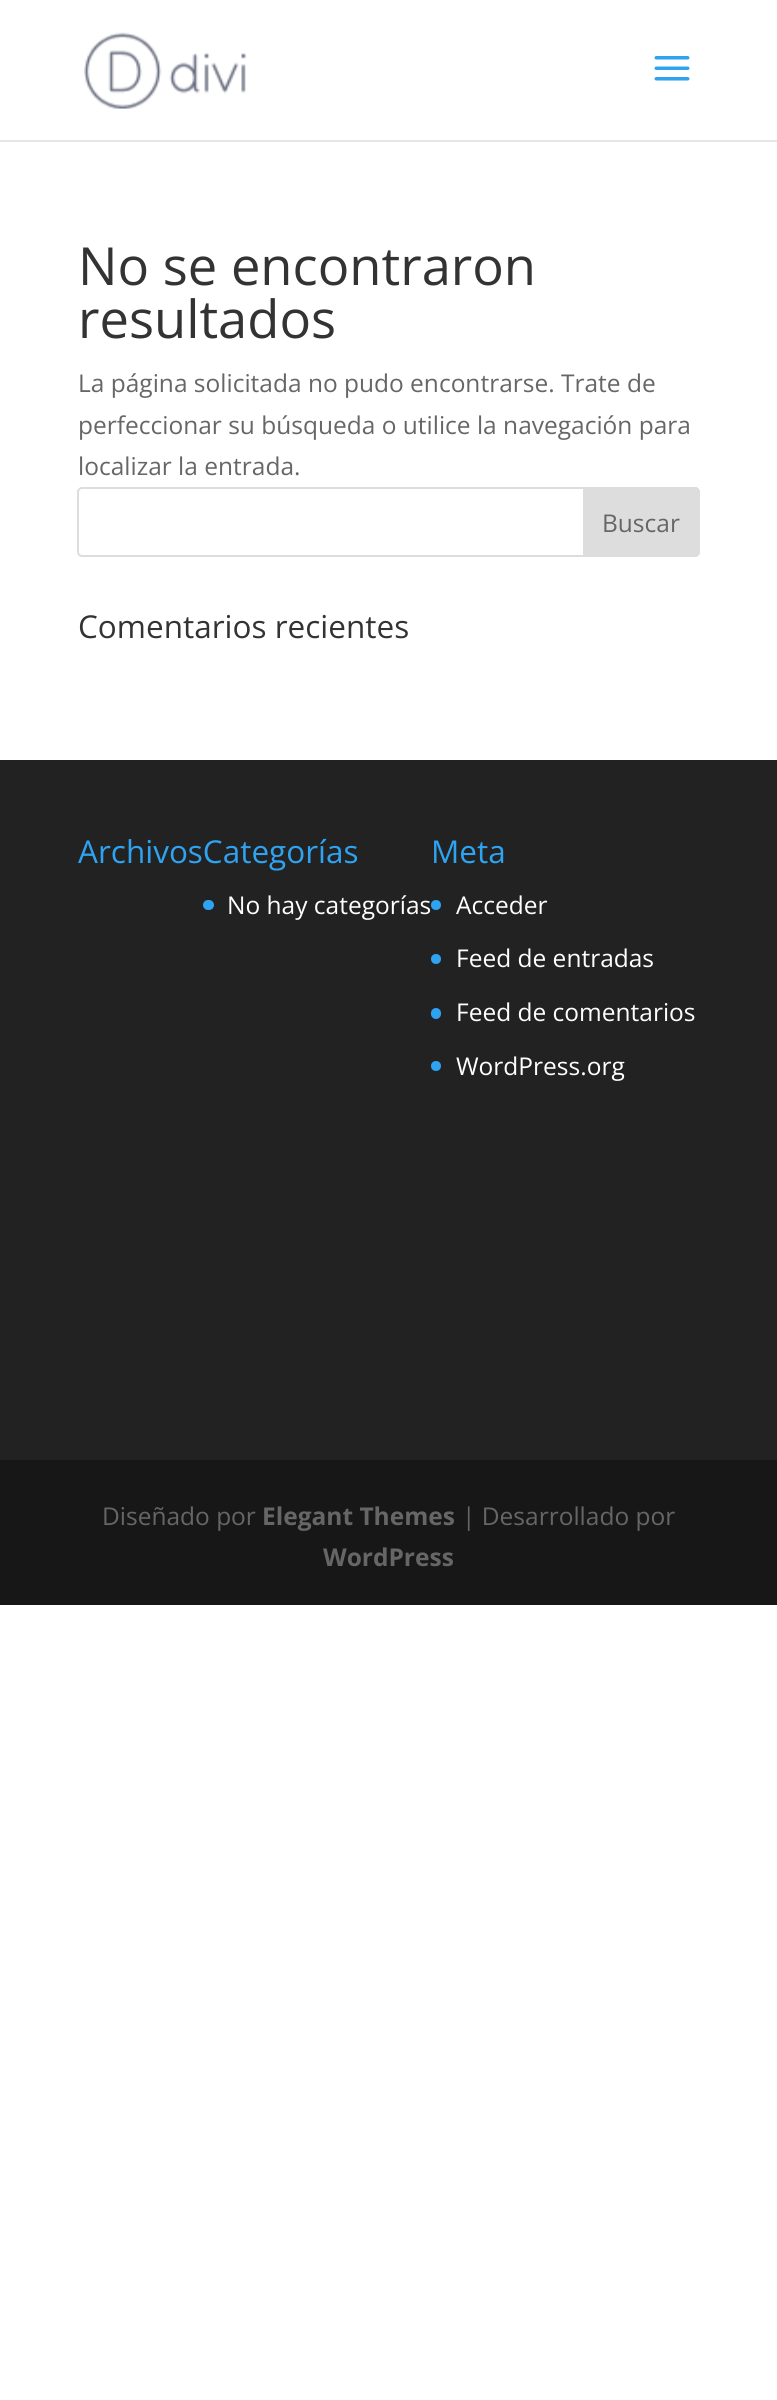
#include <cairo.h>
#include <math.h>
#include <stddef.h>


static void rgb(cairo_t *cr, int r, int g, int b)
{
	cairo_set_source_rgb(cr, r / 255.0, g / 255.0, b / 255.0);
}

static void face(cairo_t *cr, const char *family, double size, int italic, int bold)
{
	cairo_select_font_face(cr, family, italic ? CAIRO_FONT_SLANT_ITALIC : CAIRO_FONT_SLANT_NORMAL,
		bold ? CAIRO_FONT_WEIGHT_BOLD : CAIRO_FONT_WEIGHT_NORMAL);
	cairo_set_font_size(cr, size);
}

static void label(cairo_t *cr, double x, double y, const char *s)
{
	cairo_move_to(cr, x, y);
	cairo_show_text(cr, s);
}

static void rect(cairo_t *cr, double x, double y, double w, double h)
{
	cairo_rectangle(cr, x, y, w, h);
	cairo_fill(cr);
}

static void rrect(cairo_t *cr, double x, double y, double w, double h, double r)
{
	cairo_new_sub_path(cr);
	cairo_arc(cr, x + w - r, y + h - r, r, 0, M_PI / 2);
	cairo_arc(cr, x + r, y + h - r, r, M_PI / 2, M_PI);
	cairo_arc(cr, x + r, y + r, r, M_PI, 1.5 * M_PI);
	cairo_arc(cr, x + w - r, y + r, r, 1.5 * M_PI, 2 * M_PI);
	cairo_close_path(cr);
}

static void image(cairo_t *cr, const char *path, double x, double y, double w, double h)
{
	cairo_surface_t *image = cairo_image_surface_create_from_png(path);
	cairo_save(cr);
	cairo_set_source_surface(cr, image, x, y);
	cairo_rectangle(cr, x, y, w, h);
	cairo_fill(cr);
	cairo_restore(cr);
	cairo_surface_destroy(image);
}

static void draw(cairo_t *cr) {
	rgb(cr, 255, 255, 255);
	cairo_paint(cr);
	rgb(cr, 230, 230, 230);
	rect(cr, 0, 140, 777, 2);
	image(cr, "image0.png", 84, 32, 163, 77);
	image(cr, "image1.png", 654, 56, 36, 25);
	face(cr, "Open Sans", 52.5, 0, 0);
	rgb(cr, 51, 51, 51);
	label(cr, 78, 285, "No se encontraron");
	label(cr, 78, 338, "resultados");
	face(cr, "Open Sans", 24.5, 0, 0);
	rgb(cr, 102, 102, 102);
	label(cr, 78, 392, "La página solicitada no pudo encontrarse. Trate de");
	label(cr, 78, 434, "perfeccionar su búsqueda o utilice la navegación para");
	label(cr, 78, 475, "localizar la entrada.");
	rrect(cr, 78, 488, 621, 68, 4);
	rgb(cr, 221, 221, 221);
	cairo_stroke(cr);
	cairo_new_path(cr);
	cairo_move_to(cr, 584, 488);
	cairo_line_to(cr, 695, 488);
	cairo_curve_to(cr, 697, 488, 699, 490, 699, 492);
	cairo_line_to(cr, 699, 552);
	cairo_curve_to(cr, 699, 554, 697, 556, 695, 556);
	cairo_line_to(cr, 584, 556);
	cairo_close_path(cr);
	cairo_fill_preserve(cr);
	cairo_stroke(cr);
	rgb(cr, 102, 102, 102);
	label(cr, 602, 532, "Buscar");
	face(cr, "Open Sans", 31.5, 0, 0);
	rgb(cr, 51, 51, 51);
	label(cr, 78, 638, "Comentarios recientes");
	rgb(cr, 34, 34, 34);
	rect(cr, 0, 760, 777, 700);
	rgb(cr, 46, 163, 242);
	label(cr, 78, 863, "ArchivosCategorías");
	label(cr, 431, 863, "Meta");
	cairo_new_path(cr);
	cairo_arc(cr, 436, 905, 5, 0, 2 * M_PI);
	cairo_fill(cr);
	face(cr, "Open Sans", 24.5, 0, 0);
	rgb(cr, 255, 255, 255);
	label(cr, 456, 914, "Acceder");
	rgb(cr, 46, 163, 242);
	cairo_new_path(cr);
	cairo_arc(cr, 436, 959, 5, 0, 2 * M_PI);
	cairo_fill(cr);
	rgb(cr, 255, 255, 255);
	label(cr, 456, 967, "Feed de entradas");
	rgb(cr, 46, 163, 242);
	rrect(cr, 431, 1008, 10, 11, 5);
	cairo_fill(cr);
	rgb(cr, 255, 255, 255);
	label(cr, 456, 1021, "Feed de comentarios");
	rgb(cr, 46, 163, 242);
	cairo_new_path(cr);
	cairo_arc(cr, 436, 1066, 5, 0, 2 * M_PI);
	cairo_fill(cr);
	rgb(cr, 255, 255, 255);
	label(cr, 456, 1075, "WordPress.org");
	rgb(cr, 46, 163, 242);
	rrect(cr, 203, 900, 11, 10, 5);
	cairo_fill(cr);
	rgb(cr, 255, 255, 255);
	label(cr, 227, 914, "No hay categorías");
	rgb(cr, 23, 23, 23);
	rect(cr, 0, 1460, 777, 145);
	rgb(cr, 102, 102, 102);
	label(cr, 102, 1525, "Diseñado por");
	face(cr, "Open Sans", 24.5, 0, 1);
	label(cr, 262, 1525, "Elegant Themes");
	face(cr, "Open Sans", 24.5, 0, 0);
	label(cr, 462, 1525, "| Desarrollado por");
	face(cr, "Open Sans", 24.5, 0, 1);
	label(cr, 323, 1566, "WordPress");
}

int main(void) {
	cairo_surface_t *surface = cairo_image_surface_create(CAIRO_FORMAT_RGB24, 777, 2400);
	cairo_t *cr = cairo_create(surface);
	cairo_font_options_t *options = cairo_font_options_create();
	cairo_font_options_set_hint_metrics(options, CAIRO_HINT_METRICS_OFF);
	cairo_font_options_set_hint_style(options, CAIRO_HINT_STYLE_NONE);
	cairo_set_font_options(cr, options);
	cairo_set_miter_limit(cr, 4);
	draw(cr);
	cairo_surface_write_to_png(surface, "render.png");
	cairo_font_options_destroy(options);
	cairo_destroy(cr);
	cairo_surface_destroy(surface);
	return 0;
}
